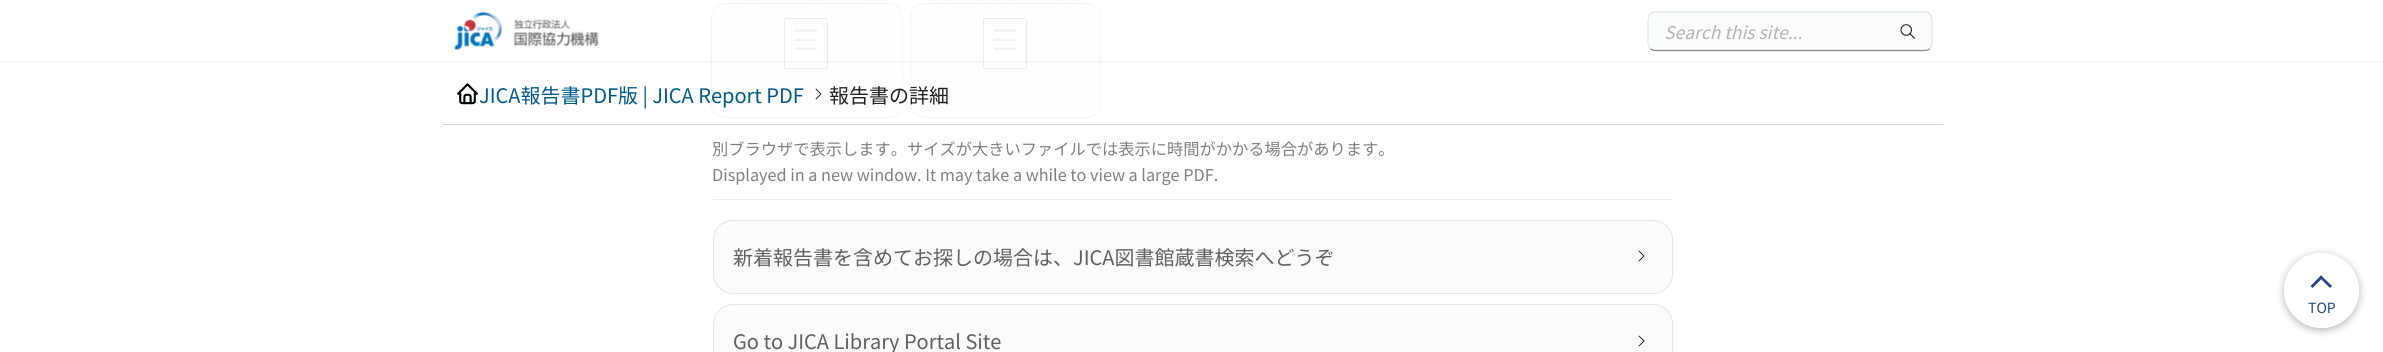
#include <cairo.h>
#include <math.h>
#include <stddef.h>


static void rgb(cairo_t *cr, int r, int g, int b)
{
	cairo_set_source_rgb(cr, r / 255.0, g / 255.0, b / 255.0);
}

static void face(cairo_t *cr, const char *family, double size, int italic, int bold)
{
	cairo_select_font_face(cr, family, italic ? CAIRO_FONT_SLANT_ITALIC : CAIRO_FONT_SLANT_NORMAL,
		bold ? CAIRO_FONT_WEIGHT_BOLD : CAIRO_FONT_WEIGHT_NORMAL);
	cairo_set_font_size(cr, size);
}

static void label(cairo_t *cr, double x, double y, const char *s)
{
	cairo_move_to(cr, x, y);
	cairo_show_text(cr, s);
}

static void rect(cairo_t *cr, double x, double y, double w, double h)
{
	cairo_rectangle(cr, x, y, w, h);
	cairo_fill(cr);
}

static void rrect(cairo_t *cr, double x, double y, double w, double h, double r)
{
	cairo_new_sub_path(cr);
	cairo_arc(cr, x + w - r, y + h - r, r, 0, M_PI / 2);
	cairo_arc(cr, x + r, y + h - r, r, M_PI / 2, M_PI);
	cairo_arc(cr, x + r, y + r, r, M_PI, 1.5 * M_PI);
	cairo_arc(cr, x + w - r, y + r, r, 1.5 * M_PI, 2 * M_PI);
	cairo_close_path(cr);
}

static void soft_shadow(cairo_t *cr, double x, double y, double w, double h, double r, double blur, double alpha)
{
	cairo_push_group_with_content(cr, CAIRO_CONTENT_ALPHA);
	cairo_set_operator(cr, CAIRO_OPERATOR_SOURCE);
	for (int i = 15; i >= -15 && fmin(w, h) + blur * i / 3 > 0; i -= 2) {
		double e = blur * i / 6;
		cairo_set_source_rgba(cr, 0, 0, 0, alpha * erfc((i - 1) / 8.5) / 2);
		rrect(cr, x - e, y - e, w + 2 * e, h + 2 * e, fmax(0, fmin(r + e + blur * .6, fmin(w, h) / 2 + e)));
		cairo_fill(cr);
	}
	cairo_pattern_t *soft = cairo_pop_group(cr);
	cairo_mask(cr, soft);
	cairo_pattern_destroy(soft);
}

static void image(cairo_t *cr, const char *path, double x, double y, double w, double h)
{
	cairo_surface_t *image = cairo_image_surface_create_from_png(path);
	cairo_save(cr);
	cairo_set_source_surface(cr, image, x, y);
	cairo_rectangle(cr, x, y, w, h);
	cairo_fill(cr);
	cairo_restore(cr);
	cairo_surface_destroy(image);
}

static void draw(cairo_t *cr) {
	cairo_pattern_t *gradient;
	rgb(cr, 255, 255, 255);
	cairo_paint(cr);
	gradient = cairo_pattern_create_linear(882, 135, 730, -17);
	cairo_pattern_add_color_stop_rgba(gradient, 0, 0.961, 0.961, 0.961, 1);
	cairo_pattern_add_color_stop_rgba(gradient, 0.01, 0.961, 0.961, 0.961, 1);
	cairo_pattern_add_color_stop_rgba(gradient, 0.01, 0.941, 0.941, 0.973, 1);
	cairo_pattern_add_color_stop_rgba(gradient, 0.02, 0.941, 0.941, 0.973, 1);
	cairo_pattern_add_color_stop_rgba(gradient, 0.02, 0.961, 0.961, 0.961, 1);
	cairo_pattern_add_color_stop_rgba(gradient, 0.03, 0.961, 0.961, 0.961, 1);
	cairo_pattern_add_color_stop_rgba(gradient, 0.03, 0.941, 0.941, 0.973, 1);
	cairo_pattern_add_color_stop_rgba(gradient, 0.05, 0.941, 0.941, 0.973, 1);
	cairo_pattern_add_color_stop_rgba(gradient, 0.05, 0.961, 0.961, 0.961, 1);
	cairo_pattern_add_color_stop_rgba(gradient, 0.06, 0.961, 0.961, 0.961, 1);
	cairo_pattern_add_color_stop_rgba(gradient, 0.06, 0.941, 0.941, 0.973, 1);
	cairo_pattern_add_color_stop_rgba(gradient, 0.07, 0.941, 0.941, 0.973, 1);
	cairo_pattern_add_color_stop_rgba(gradient, 0.07, 0.961, 0.961, 0.961, 1);
	cairo_pattern_add_color_stop_rgba(gradient, 0.08, 0.961, 0.961, 0.961, 1);
	cairo_pattern_add_color_stop_rgba(gradient, 0.08, 0.941, 0.941, 0.973, 1);
	cairo_pattern_add_color_stop_rgba(gradient, 0.09, 0.941, 0.941, 0.973, 1);
	cairo_pattern_add_color_stop_rgba(gradient, 0.09, 0.961, 0.961, 0.961, 1);
	cairo_pattern_add_color_stop_rgba(gradient, 0.1, 0.961, 0.961, 0.961, 1);
	cairo_pattern_add_color_stop_rgba(gradient, 0.1, 0.941, 0.941, 0.973, 1);
	cairo_pattern_add_color_stop_rgba(gradient, 0.12, 0.941, 0.941, 0.973, 1);
	cairo_pattern_add_color_stop_rgba(gradient, 0.12, 0.961, 0.961, 0.961, 1);
	cairo_pattern_add_color_stop_rgba(gradient, 0.13, 0.961, 0.961, 0.961, 1);
	cairo_pattern_add_color_stop_rgba(gradient, 0.13, 0.941, 0.941, 0.973, 1);
	cairo_pattern_add_color_stop_rgba(gradient, 0.14, 0.941, 0.941, 0.973, 1);
	cairo_pattern_add_color_stop_rgba(gradient, 0.14, 0.961, 0.961, 0.961, 1);
	cairo_pattern_add_color_stop_rgba(gradient, 0.15, 0.961, 0.961, 0.961, 1);
	cairo_pattern_add_color_stop_rgba(gradient, 0.15, 0.941, 0.941, 0.973, 1);
	cairo_pattern_add_color_stop_rgba(gradient, 0.16, 0.941, 0.941, 0.973, 1);
	cairo_pattern_add_color_stop_rgba(gradient, 0.16, 0.961, 0.961, 0.961, 1);
	cairo_pattern_add_color_stop_rgba(gradient, 0.17, 0.961, 0.961, 0.961, 1);
	cairo_pattern_add_color_stop_rgba(gradient, 0.17, 0.941, 0.941, 0.973, 1);
	cairo_pattern_add_color_stop_rgba(gradient, 0.19, 0.941, 0.941, 0.973, 1);
	cairo_pattern_add_color_stop_rgba(gradient, 0.19, 0.961, 0.961, 0.961, 1);
	cairo_pattern_add_color_stop_rgba(gradient, 0.2, 0.961, 0.961, 0.961, 1);
	cairo_pattern_add_color_stop_rgba(gradient, 0.2, 0.941, 0.941, 0.973, 1);
	cairo_pattern_add_color_stop_rgba(gradient, 0.21, 0.941, 0.941, 0.973, 1);
	cairo_pattern_add_color_stop_rgba(gradient, 0.21, 0.961, 0.961, 0.961, 1);
	cairo_pattern_add_color_stop_rgba(gradient, 0.22, 0.961, 0.961, 0.961, 1);
	cairo_pattern_add_color_stop_rgba(gradient, 0.22, 0.941, 0.941, 0.973, 1);
	cairo_pattern_add_color_stop_rgba(gradient, 0.23, 0.941, 0.941, 0.973, 1);
	cairo_pattern_add_color_stop_rgba(gradient, 0.23, 0.961, 0.961, 0.961, 1);
	cairo_pattern_add_color_stop_rgba(gradient, 0.24, 0.961, 0.961, 0.961, 1);
	cairo_pattern_add_color_stop_rgba(gradient, 0.24, 0.941, 0.941, 0.973, 1);
	cairo_pattern_add_color_stop_rgba(gradient, 0.26, 0.941, 0.941, 0.973, 1);
	cairo_pattern_add_color_stop_rgba(gradient, 0.26, 0.961, 0.961, 0.961, 1);
	cairo_pattern_add_color_stop_rgba(gradient, 0.27, 0.961, 0.961, 0.961, 1);
	cairo_pattern_add_color_stop_rgba(gradient, 0.27, 0.941, 0.941, 0.973, 1);
	cairo_pattern_add_color_stop_rgba(gradient, 0.28, 0.941, 0.941, 0.973, 1);
	cairo_pattern_add_color_stop_rgba(gradient, 0.28, 0.961, 0.961, 0.961, 1);
	cairo_pattern_add_color_stop_rgba(gradient, 0.29, 0.961, 0.961, 0.961, 1);
	cairo_pattern_add_color_stop_rgba(gradient, 0.29, 0.941, 0.941, 0.973, 1);
	cairo_pattern_add_color_stop_rgba(gradient, 0.3, 0.941, 0.941, 0.973, 1);
	cairo_pattern_add_color_stop_rgba(gradient, 0.3, 0.961, 0.961, 0.961, 1);
	cairo_pattern_add_color_stop_rgba(gradient, 0.31, 0.961, 0.961, 0.961, 1);
	cairo_pattern_add_color_stop_rgba(gradient, 0.31, 0.941, 0.941, 0.973, 1);
	cairo_pattern_add_color_stop_rgba(gradient, 0.33, 0.941, 0.941, 0.973, 1);
	cairo_pattern_add_color_stop_rgba(gradient, 0.33, 0.961, 0.961, 0.961, 1);
	cairo_pattern_add_color_stop_rgba(gradient, 0.34, 0.961, 0.961, 0.961, 1);
	cairo_pattern_add_color_stop_rgba(gradient, 0.34, 0.941, 0.941, 0.973, 1);
	cairo_pattern_add_color_stop_rgba(gradient, 0.35, 0.941, 0.941, 0.973, 1);
	cairo_pattern_add_color_stop_rgba(gradient, 0.35, 0.961, 0.961, 0.961, 1);
	cairo_pattern_add_color_stop_rgba(gradient, 0.36, 0.961, 0.961, 0.961, 1);
	cairo_pattern_add_color_stop_rgba(gradient, 0.36, 0.941, 0.941, 0.973, 1);
	cairo_pattern_add_color_stop_rgba(gradient, 0.37, 0.941, 0.941, 0.973, 1);
	cairo_pattern_add_color_stop_rgba(gradient, 0.37, 0.961, 0.961, 0.961, 1);
	cairo_pattern_add_color_stop_rgba(gradient, 0.38, 0.961, 0.961, 0.961, 1);
	cairo_pattern_add_color_stop_rgba(gradient, 0.38, 0.941, 0.941, 0.973, 1);
	cairo_pattern_add_color_stop_rgba(gradient, 0.4, 0.941, 0.941, 0.973, 1);
	cairo_pattern_add_color_stop_rgba(gradient, 0.4, 0.961, 0.961, 0.961, 1);
	cairo_pattern_add_color_stop_rgba(gradient, 0.41, 0.961, 0.961, 0.961, 1);
	cairo_pattern_add_color_stop_rgba(gradient, 0.41, 0.941, 0.941, 0.973, 1);
	cairo_pattern_add_color_stop_rgba(gradient, 0.42, 0.941, 0.941, 0.973, 1);
	cairo_pattern_add_color_stop_rgba(gradient, 0.42, 0.961, 0.961, 0.961, 1);
	cairo_pattern_add_color_stop_rgba(gradient, 0.43, 0.961, 0.961, 0.961, 1);
	cairo_pattern_add_color_stop_rgba(gradient, 0.43, 0.941, 0.941, 0.973, 1);
	cairo_pattern_add_color_stop_rgba(gradient, 0.44, 0.941, 0.941, 0.973, 1);
	cairo_pattern_add_color_stop_rgba(gradient, 0.44, 0.961, 0.961, 0.961, 1);
	cairo_pattern_add_color_stop_rgba(gradient, 0.45, 0.961, 0.961, 0.961, 1);
	cairo_pattern_add_color_stop_rgba(gradient, 0.45, 0.941, 0.941, 0.973, 1);
	cairo_pattern_add_color_stop_rgba(gradient, 0.47, 0.941, 0.941, 0.973, 1);
	cairo_pattern_add_color_stop_rgba(gradient, 0.47, 0.961, 0.961, 0.961, 1);
	cairo_pattern_add_color_stop_rgba(gradient, 0.48, 0.961, 0.961, 0.961, 1);
	cairo_pattern_add_color_stop_rgba(gradient, 0.48, 0.941, 0.941, 0.973, 1);
	cairo_pattern_add_color_stop_rgba(gradient, 0.49, 0.941, 0.941, 0.973, 1);
	cairo_pattern_add_color_stop_rgba(gradient, 0.49, 0.961, 0.961, 0.961, 1);
	cairo_pattern_add_color_stop_rgba(gradient, 0.5, 0.961, 0.961, 0.961, 1);
	cairo_pattern_add_color_stop_rgba(gradient, 0.5, 0.941, 0.941, 0.973, 1);
	cairo_pattern_add_color_stop_rgba(gradient, 0.51, 0.941, 0.941, 0.973, 1);
	cairo_pattern_add_color_stop_rgba(gradient, 0.51, 0.961, 0.961, 0.961, 1);
	cairo_pattern_add_color_stop_rgba(gradient, 0.52, 0.961, 0.961, 0.961, 1);
	cairo_pattern_add_color_stop_rgba(gradient, 0.52, 0.941, 0.941, 0.973, 1);
	cairo_pattern_add_color_stop_rgba(gradient, 0.53, 0.941, 0.941, 0.973, 1);
	cairo_pattern_add_color_stop_rgba(gradient, 0.53, 0.961, 0.961, 0.961, 1);
	cairo_pattern_add_color_stop_rgba(gradient, 0.55, 0.961, 0.961, 0.961, 1);
	cairo_pattern_add_color_stop_rgba(gradient, 0.55, 0.941, 0.941, 0.973, 1);
	cairo_pattern_add_color_stop_rgba(gradient, 0.56, 0.941, 0.941, 0.973, 1);
	cairo_pattern_add_color_stop_rgba(gradient, 0.56, 0.961, 0.961, 0.961, 1);
	cairo_pattern_add_color_stop_rgba(gradient, 0.57, 0.961, 0.961, 0.961, 1);
	cairo_pattern_add_color_stop_rgba(gradient, 0.57, 0.941, 0.941, 0.973, 1);
	cairo_pattern_add_color_stop_rgba(gradient, 0.58, 0.941, 0.941, 0.973, 1);
	cairo_pattern_add_color_stop_rgba(gradient, 0.58, 0.961, 0.961, 0.961, 1);
	cairo_pattern_add_color_stop_rgba(gradient, 0.59, 0.961, 0.961, 0.961, 1);
	cairo_pattern_add_color_stop_rgba(gradient, 0.59, 0.941, 0.941, 0.973, 1);
	cairo_pattern_add_color_stop_rgba(gradient, 0.6, 0.941, 0.941, 0.973, 1);
	cairo_pattern_add_color_stop_rgba(gradient, 0.6, 0.961, 0.961, 0.961, 1);
	cairo_pattern_add_color_stop_rgba(gradient, 0.62, 0.961, 0.961, 0.961, 1);
	cairo_pattern_add_color_stop_rgba(gradient, 0.62, 0.941, 0.941, 0.973, 1);
	cairo_pattern_add_color_stop_rgba(gradient, 0.63, 0.941, 0.941, 0.973, 1);
	cairo_pattern_add_color_stop_rgba(gradient, 0.63, 0.961, 0.961, 0.961, 1);
	cairo_pattern_add_color_stop_rgba(gradient, 0.64, 0.961, 0.961, 0.961, 1);
	cairo_pattern_add_color_stop_rgba(gradient, 0.64, 0.941, 0.941, 0.973, 1);
	cairo_pattern_add_color_stop_rgba(gradient, 0.65, 0.941, 0.941, 0.973, 1);
	cairo_pattern_add_color_stop_rgba(gradient, 0.65, 0.961, 0.961, 0.961, 1);
	cairo_pattern_add_color_stop_rgba(gradient, 0.66, 0.961, 0.961, 0.961, 1);
	cairo_pattern_add_color_stop_rgba(gradient, 0.66, 0.941, 0.941, 0.973, 1);
	cairo_pattern_add_color_stop_rgba(gradient, 0.67, 0.941, 0.941, 0.973, 1);
	cairo_pattern_add_color_stop_rgba(gradient, 0.67, 0.961, 0.961, 0.961, 1);
	cairo_pattern_add_color_stop_rgba(gradient, 0.69, 0.961, 0.961, 0.961, 1);
	cairo_pattern_add_color_stop_rgba(gradient, 0.69, 0.941, 0.941, 0.973, 1);
	cairo_pattern_add_color_stop_rgba(gradient, 0.7, 0.941, 0.941, 0.973, 1);
	cairo_pattern_add_color_stop_rgba(gradient, 0.7, 0.961, 0.961, 0.961, 1);
	cairo_pattern_add_color_stop_rgba(gradient, 0.71, 0.961, 0.961, 0.961, 1);
	cairo_pattern_add_color_stop_rgba(gradient, 0.71, 0.941, 0.941, 0.973, 1);
	cairo_pattern_add_color_stop_rgba(gradient, 0.72, 0.941, 0.941, 0.973, 1);
	cairo_pattern_add_color_stop_rgba(gradient, 0.72, 0.961, 0.961, 0.961, 1);
	cairo_pattern_add_color_stop_rgba(gradient, 0.73, 0.961, 0.961, 0.961, 1);
	cairo_pattern_add_color_stop_rgba(gradient, 0.73, 0.941, 0.941, 0.973, 1);
	cairo_pattern_add_color_stop_rgba(gradient, 0.74, 0.941, 0.941, 0.973, 1);
	cairo_pattern_add_color_stop_rgba(gradient, 0.74, 0.961, 0.961, 0.961, 1);
	cairo_pattern_add_color_stop_rgba(gradient, 0.76, 0.961, 0.961, 0.961, 1);
	cairo_pattern_add_color_stop_rgba(gradient, 0.76, 0.941, 0.941, 0.973, 1);
	cairo_pattern_add_color_stop_rgba(gradient, 0.77, 0.941, 0.941, 0.973, 1);
	cairo_pattern_add_color_stop_rgba(gradient, 0.77, 0.961, 0.961, 0.961, 1);
	cairo_pattern_add_color_stop_rgba(gradient, 0.78, 0.961, 0.961, 0.961, 1);
	cairo_pattern_add_color_stop_rgba(gradient, 0.78, 0.941, 0.941, 0.973, 1);
	cairo_pattern_add_color_stop_rgba(gradient, 0.79, 0.941, 0.941, 0.973, 1);
	cairo_pattern_add_color_stop_rgba(gradient, 0.79, 0.961, 0.961, 0.961, 1);
	cairo_pattern_add_color_stop_rgba(gradient, 0.8, 0.961, 0.961, 0.961, 1);
	cairo_pattern_add_color_stop_rgba(gradient, 0.8, 0.941, 0.941, 0.973, 1);
	cairo_pattern_add_color_stop_rgba(gradient, 0.81, 0.941, 0.941, 0.973, 1);
	cairo_pattern_add_color_stop_rgba(gradient, 0.81, 0.961, 0.961, 0.961, 1);
	cairo_pattern_add_color_stop_rgba(gradient, 0.83, 0.961, 0.961, 0.961, 1);
	cairo_pattern_add_color_stop_rgba(gradient, 0.83, 0.941, 0.941, 0.973, 1);
	cairo_pattern_add_color_stop_rgba(gradient, 0.84, 0.941, 0.941, 0.973, 1);
	cairo_pattern_add_color_stop_rgba(gradient, 0.84, 0.961, 0.961, 0.961, 1);
	cairo_pattern_add_color_stop_rgba(gradient, 0.85, 0.961, 0.961, 0.961, 1);
	cairo_pattern_add_color_stop_rgba(gradient, 0.85, 0.941, 0.941, 0.973, 1);
	cairo_pattern_add_color_stop_rgba(gradient, 0.86, 0.941, 0.941, 0.973, 1);
	cairo_pattern_add_color_stop_rgba(gradient, 0.86, 0.961, 0.961, 0.961, 1);
	cairo_pattern_add_color_stop_rgba(gradient, 0.87, 0.961, 0.961, 0.961, 1);
	cairo_pattern_add_color_stop_rgba(gradient, 0.87, 0.941, 0.941, 0.973, 1);
	cairo_pattern_add_color_stop_rgba(gradient, 0.88, 0.941, 0.941, 0.973, 1);
	cairo_pattern_add_color_stop_rgba(gradient, 0.88, 0.961, 0.961, 0.961, 1);
	cairo_pattern_add_color_stop_rgba(gradient, 0.9, 0.961, 0.961, 0.961, 1);
	cairo_pattern_add_color_stop_rgba(gradient, 0.9, 0.941, 0.941, 0.973, 1);
	cairo_pattern_add_color_stop_rgba(gradient, 0.91, 0.941, 0.941, 0.973, 1);
	cairo_pattern_add_color_stop_rgba(gradient, 0.91, 0.961, 0.961, 0.961, 1);
	cairo_pattern_add_color_stop_rgba(gradient, 0.92, 0.961, 0.961, 0.961, 1);
	cairo_pattern_add_color_stop_rgba(gradient, 0.92, 0.941, 0.941, 0.973, 1);
	cairo_pattern_add_color_stop_rgba(gradient, 0.93, 0.941, 0.941, 0.973, 1);
	cairo_pattern_add_color_stop_rgba(gradient, 0.93, 0.961, 0.961, 0.961, 1);
	cairo_pattern_add_color_stop_rgba(gradient, 0.94, 0.961, 0.961, 0.961, 1);
	cairo_pattern_add_color_stop_rgba(gradient, 0.94, 0.941, 0.941, 0.973, 1);
	cairo_pattern_add_color_stop_rgba(gradient, 0.95, 0.941, 0.941, 0.973, 1);
	cairo_pattern_add_color_stop_rgba(gradient, 0.95, 0.961, 0.961, 0.961, 1);
	cairo_pattern_add_color_stop_rgba(gradient, 0.97, 0.961, 0.961, 0.961, 1);
	cairo_pattern_add_color_stop_rgba(gradient, 0.97, 0.941, 0.941, 0.973, 1);
	cairo_pattern_add_color_stop_rgba(gradient, 0.98, 0.941, 0.941, 0.973, 1);
	cairo_pattern_add_color_stop_rgba(gradient, 0.98, 0.961, 0.961, 0.961, 1);
	cairo_pattern_add_color_stop_rgba(gradient, 0.99, 0.961, 0.961, 0.961, 1);
	cairo_pattern_add_color_stop_rgba(gradient, 0.99, 0.941, 0.941, 0.973, 1);
	cairo_pattern_add_color_stop_rgba(gradient, 1, 0.941, 0.941, 0.973, 1);
	cairo_set_source(cr, gradient);
	cairo_pattern_destroy(gradient);
	rrect(cr, 713, 4, 188, 112, 13);
	cairo_fill(cr);
	rrect(cr, 711.5, 3.5, 191, 114, 13.5);
	rgb(cr, 152, 177, 228);
	cairo_set_line_width(cr, 1);
	cairo_stroke(cr);
	image(cr, "image3.png", 784, 18, 44, 51);
	gradient = cairo_pattern_create_linear(1081, 135, 929, -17);
	cairo_pattern_add_color_stop_rgba(gradient, 0, 0.961, 0.961, 0.961, 1);
	cairo_pattern_add_color_stop_rgba(gradient, 0.01, 0.961, 0.961, 0.961, 1);
	cairo_pattern_add_color_stop_rgba(gradient, 0.01, 0.941, 0.941, 0.973, 1);
	cairo_pattern_add_color_stop_rgba(gradient, 0.02, 0.941, 0.941, 0.973, 1);
	cairo_pattern_add_color_stop_rgba(gradient, 0.02, 0.961, 0.961, 0.961, 1);
	cairo_pattern_add_color_stop_rgba(gradient, 0.03, 0.961, 0.961, 0.961, 1);
	cairo_pattern_add_color_stop_rgba(gradient, 0.03, 0.941, 0.941, 0.973, 1);
	cairo_pattern_add_color_stop_rgba(gradient, 0.05, 0.941, 0.941, 0.973, 1);
	cairo_pattern_add_color_stop_rgba(gradient, 0.05, 0.961, 0.961, 0.961, 1);
	cairo_pattern_add_color_stop_rgba(gradient, 0.06, 0.961, 0.961, 0.961, 1);
	cairo_pattern_add_color_stop_rgba(gradient, 0.06, 0.941, 0.941, 0.973, 1);
	cairo_pattern_add_color_stop_rgba(gradient, 0.07, 0.941, 0.941, 0.973, 1);
	cairo_pattern_add_color_stop_rgba(gradient, 0.07, 0.961, 0.961, 0.961, 1);
	cairo_pattern_add_color_stop_rgba(gradient, 0.08, 0.961, 0.961, 0.961, 1);
	cairo_pattern_add_color_stop_rgba(gradient, 0.08, 0.941, 0.941, 0.973, 1);
	cairo_pattern_add_color_stop_rgba(gradient, 0.09, 0.941, 0.941, 0.973, 1);
	cairo_pattern_add_color_stop_rgba(gradient, 0.09, 0.961, 0.961, 0.961, 1);
	cairo_pattern_add_color_stop_rgba(gradient, 0.1, 0.961, 0.961, 0.961, 1);
	cairo_pattern_add_color_stop_rgba(gradient, 0.1, 0.941, 0.941, 0.973, 1);
	cairo_pattern_add_color_stop_rgba(gradient, 0.12, 0.941, 0.941, 0.973, 1);
	cairo_pattern_add_color_stop_rgba(gradient, 0.12, 0.961, 0.961, 0.961, 1);
	cairo_pattern_add_color_stop_rgba(gradient, 0.13, 0.961, 0.961, 0.961, 1);
	cairo_pattern_add_color_stop_rgba(gradient, 0.13, 0.941, 0.941, 0.973, 1);
	cairo_pattern_add_color_stop_rgba(gradient, 0.14, 0.941, 0.941, 0.973, 1);
	cairo_pattern_add_color_stop_rgba(gradient, 0.14, 0.961, 0.961, 0.961, 1);
	cairo_pattern_add_color_stop_rgba(gradient, 0.15, 0.961, 0.961, 0.961, 1);
	cairo_pattern_add_color_stop_rgba(gradient, 0.15, 0.941, 0.941, 0.973, 1);
	cairo_pattern_add_color_stop_rgba(gradient, 0.16, 0.941, 0.941, 0.973, 1);
	cairo_pattern_add_color_stop_rgba(gradient, 0.16, 0.961, 0.961, 0.961, 1);
	cairo_pattern_add_color_stop_rgba(gradient, 0.17, 0.961, 0.961, 0.961, 1);
	cairo_pattern_add_color_stop_rgba(gradient, 0.17, 0.941, 0.941, 0.973, 1);
	cairo_pattern_add_color_stop_rgba(gradient, 0.19, 0.941, 0.941, 0.973, 1);
	cairo_pattern_add_color_stop_rgba(gradient, 0.19, 0.961, 0.961, 0.961, 1);
	cairo_pattern_add_color_stop_rgba(gradient, 0.2, 0.961, 0.961, 0.961, 1);
	cairo_pattern_add_color_stop_rgba(gradient, 0.2, 0.941, 0.941, 0.973, 1);
	cairo_pattern_add_color_stop_rgba(gradient, 0.21, 0.941, 0.941, 0.973, 1);
	cairo_pattern_add_color_stop_rgba(gradient, 0.21, 0.961, 0.961, 0.961, 1);
	cairo_pattern_add_color_stop_rgba(gradient, 0.22, 0.961, 0.961, 0.961, 1);
	cairo_pattern_add_color_stop_rgba(gradient, 0.22, 0.941, 0.941, 0.973, 1);
	cairo_pattern_add_color_stop_rgba(gradient, 0.23, 0.941, 0.941, 0.973, 1);
	cairo_pattern_add_color_stop_rgba(gradient, 0.23, 0.961, 0.961, 0.961, 1);
	cairo_pattern_add_color_stop_rgba(gradient, 0.24, 0.961, 0.961, 0.961, 1);
	cairo_pattern_add_color_stop_rgba(gradient, 0.24, 0.941, 0.941, 0.973, 1);
	cairo_pattern_add_color_stop_rgba(gradient, 0.26, 0.941, 0.941, 0.973, 1);
	cairo_pattern_add_color_stop_rgba(gradient, 0.26, 0.961, 0.961, 0.961, 1);
	cairo_pattern_add_color_stop_rgba(gradient, 0.27, 0.961, 0.961, 0.961, 1);
	cairo_pattern_add_color_stop_rgba(gradient, 0.27, 0.941, 0.941, 0.973, 1);
	cairo_pattern_add_color_stop_rgba(gradient, 0.28, 0.941, 0.941, 0.973, 1);
	cairo_pattern_add_color_stop_rgba(gradient, 0.28, 0.961, 0.961, 0.961, 1);
	cairo_pattern_add_color_stop_rgba(gradient, 0.29, 0.961, 0.961, 0.961, 1);
	cairo_pattern_add_color_stop_rgba(gradient, 0.29, 0.941, 0.941, 0.973, 1);
	cairo_pattern_add_color_stop_rgba(gradient, 0.3, 0.941, 0.941, 0.973, 1);
	cairo_pattern_add_color_stop_rgba(gradient, 0.3, 0.961, 0.961, 0.961, 1);
	cairo_pattern_add_color_stop_rgba(gradient, 0.31, 0.961, 0.961, 0.961, 1);
	cairo_pattern_add_color_stop_rgba(gradient, 0.31, 0.941, 0.941, 0.973, 1);
	cairo_pattern_add_color_stop_rgba(gradient, 0.33, 0.941, 0.941, 0.973, 1);
	cairo_pattern_add_color_stop_rgba(gradient, 0.33, 0.961, 0.961, 0.961, 1);
	cairo_pattern_add_color_stop_rgba(gradient, 0.34, 0.961, 0.961, 0.961, 1);
	cairo_pattern_add_color_stop_rgba(gradient, 0.34, 0.941, 0.941, 0.973, 1);
	cairo_pattern_add_color_stop_rgba(gradient, 0.35, 0.941, 0.941, 0.973, 1);
	cairo_pattern_add_color_stop_rgba(gradient, 0.35, 0.961, 0.961, 0.961, 1);
	cairo_pattern_add_color_stop_rgba(gradient, 0.36, 0.961, 0.961, 0.961, 1);
	cairo_pattern_add_color_stop_rgba(gradient, 0.36, 0.941, 0.941, 0.973, 1);
	cairo_pattern_add_color_stop_rgba(gradient, 0.37, 0.941, 0.941, 0.973, 1);
	cairo_pattern_add_color_stop_rgba(gradient, 0.37, 0.961, 0.961, 0.961, 1);
	cairo_pattern_add_color_stop_rgba(gradient, 0.38, 0.961, 0.961, 0.961, 1);
	cairo_pattern_add_color_stop_rgba(gradient, 0.38, 0.941, 0.941, 0.973, 1);
	cairo_pattern_add_color_stop_rgba(gradient, 0.4, 0.941, 0.941, 0.973, 1);
	cairo_pattern_add_color_stop_rgba(gradient, 0.4, 0.961, 0.961, 0.961, 1);
	cairo_pattern_add_color_stop_rgba(gradient, 0.41, 0.961, 0.961, 0.961, 1);
	cairo_pattern_add_color_stop_rgba(gradient, 0.41, 0.941, 0.941, 0.973, 1);
	cairo_pattern_add_color_stop_rgba(gradient, 0.42, 0.941, 0.941, 0.973, 1);
	cairo_pattern_add_color_stop_rgba(gradient, 0.42, 0.961, 0.961, 0.961, 1);
	cairo_pattern_add_color_stop_rgba(gradient, 0.43, 0.961, 0.961, 0.961, 1);
	cairo_pattern_add_color_stop_rgba(gradient, 0.43, 0.941, 0.941, 0.973, 1);
	cairo_pattern_add_color_stop_rgba(gradient, 0.44, 0.941, 0.941, 0.973, 1);
	cairo_pattern_add_color_stop_rgba(gradient, 0.44, 0.961, 0.961, 0.961, 1);
	cairo_pattern_add_color_stop_rgba(gradient, 0.45, 0.961, 0.961, 0.961, 1);
	cairo_pattern_add_color_stop_rgba(gradient, 0.45, 0.941, 0.941, 0.973, 1);
	cairo_pattern_add_color_stop_rgba(gradient, 0.47, 0.941, 0.941, 0.973, 1);
	cairo_pattern_add_color_stop_rgba(gradient, 0.47, 0.961, 0.961, 0.961, 1);
	cairo_pattern_add_color_stop_rgba(gradient, 0.48, 0.961, 0.961, 0.961, 1);
	cairo_pattern_add_color_stop_rgba(gradient, 0.48, 0.941, 0.941, 0.973, 1);
	cairo_pattern_add_color_stop_rgba(gradient, 0.49, 0.941, 0.941, 0.973, 1);
	cairo_pattern_add_color_stop_rgba(gradient, 0.49, 0.961, 0.961, 0.961, 1);
	cairo_pattern_add_color_stop_rgba(gradient, 0.5, 0.961, 0.961, 0.961, 1);
	cairo_pattern_add_color_stop_rgba(gradient, 0.5, 0.941, 0.941, 0.973, 1);
	cairo_pattern_add_color_stop_rgba(gradient, 0.51, 0.941, 0.941, 0.973, 1);
	cairo_pattern_add_color_stop_rgba(gradient, 0.51, 0.961, 0.961, 0.961, 1);
	cairo_pattern_add_color_stop_rgba(gradient, 0.52, 0.961, 0.961, 0.961, 1);
	cairo_pattern_add_color_stop_rgba(gradient, 0.52, 0.941, 0.941, 0.973, 1);
	cairo_pattern_add_color_stop_rgba(gradient, 0.53, 0.941, 0.941, 0.973, 1);
	cairo_pattern_add_color_stop_rgba(gradient, 0.53, 0.961, 0.961, 0.961, 1);
	cairo_pattern_add_color_stop_rgba(gradient, 0.55, 0.961, 0.961, 0.961, 1);
	cairo_pattern_add_color_stop_rgba(gradient, 0.55, 0.941, 0.941, 0.973, 1);
	cairo_pattern_add_color_stop_rgba(gradient, 0.56, 0.941, 0.941, 0.973, 1);
	cairo_pattern_add_color_stop_rgba(gradient, 0.56, 0.961, 0.961, 0.961, 1);
	cairo_pattern_add_color_stop_rgba(gradient, 0.57, 0.961, 0.961, 0.961, 1);
	cairo_pattern_add_color_stop_rgba(gradient, 0.57, 0.941, 0.941, 0.973, 1);
	cairo_pattern_add_color_stop_rgba(gradient, 0.58, 0.941, 0.941, 0.973, 1);
	cairo_pattern_add_color_stop_rgba(gradient, 0.58, 0.961, 0.961, 0.961, 1);
	cairo_pattern_add_color_stop_rgba(gradient, 0.59, 0.961, 0.961, 0.961, 1);
	cairo_pattern_add_color_stop_rgba(gradient, 0.59, 0.941, 0.941, 0.973, 1);
	cairo_pattern_add_color_stop_rgba(gradient, 0.6, 0.941, 0.941, 0.973, 1);
	cairo_pattern_add_color_stop_rgba(gradient, 0.6, 0.961, 0.961, 0.961, 1);
	cairo_pattern_add_color_stop_rgba(gradient, 0.62, 0.961, 0.961, 0.961, 1);
	cairo_pattern_add_color_stop_rgba(gradient, 0.62, 0.941, 0.941, 0.973, 1);
	cairo_pattern_add_color_stop_rgba(gradient, 0.63, 0.941, 0.941, 0.973, 1);
	cairo_pattern_add_color_stop_rgba(gradient, 0.63, 0.961, 0.961, 0.961, 1);
	cairo_pattern_add_color_stop_rgba(gradient, 0.64, 0.961, 0.961, 0.961, 1);
	cairo_pattern_add_color_stop_rgba(gradient, 0.64, 0.941, 0.941, 0.973, 1);
	cairo_pattern_add_color_stop_rgba(gradient, 0.65, 0.941, 0.941, 0.973, 1);
	cairo_pattern_add_color_stop_rgba(gradient, 0.65, 0.961, 0.961, 0.961, 1);
	cairo_pattern_add_color_stop_rgba(gradient, 0.66, 0.961, 0.961, 0.961, 1);
	cairo_pattern_add_color_stop_rgba(gradient, 0.66, 0.941, 0.941, 0.973, 1);
	cairo_pattern_add_color_stop_rgba(gradient, 0.67, 0.941, 0.941, 0.973, 1);
	cairo_pattern_add_color_stop_rgba(gradient, 0.67, 0.961, 0.961, 0.961, 1);
	cairo_pattern_add_color_stop_rgba(gradient, 0.69, 0.961, 0.961, 0.961, 1);
	cairo_pattern_add_color_stop_rgba(gradient, 0.69, 0.941, 0.941, 0.973, 1);
	cairo_pattern_add_color_stop_rgba(gradient, 0.7, 0.941, 0.941, 0.973, 1);
	cairo_pattern_add_color_stop_rgba(gradient, 0.7, 0.961, 0.961, 0.961, 1);
	cairo_pattern_add_color_stop_rgba(gradient, 0.71, 0.961, 0.961, 0.961, 1);
	cairo_pattern_add_color_stop_rgba(gradient, 0.71, 0.941, 0.941, 0.973, 1);
	cairo_pattern_add_color_stop_rgba(gradient, 0.72, 0.941, 0.941, 0.973, 1);
	cairo_pattern_add_color_stop_rgba(gradient, 0.72, 0.961, 0.961, 0.961, 1);
	cairo_pattern_add_color_stop_rgba(gradient, 0.73, 0.961, 0.961, 0.961, 1);
	cairo_pattern_add_color_stop_rgba(gradient, 0.73, 0.941, 0.941, 0.973, 1);
	cairo_pattern_add_color_stop_rgba(gradient, 0.74, 0.941, 0.941, 0.973, 1);
	cairo_pattern_add_color_stop_rgba(gradient, 0.74, 0.961, 0.961, 0.961, 1);
	cairo_pattern_add_color_stop_rgba(gradient, 0.76, 0.961, 0.961, 0.961, 1);
	cairo_pattern_add_color_stop_rgba(gradient, 0.76, 0.941, 0.941, 0.973, 1);
	cairo_pattern_add_color_stop_rgba(gradient, 0.77, 0.941, 0.941, 0.973, 1);
	cairo_pattern_add_color_stop_rgba(gradient, 0.77, 0.961, 0.961, 0.961, 1);
	cairo_pattern_add_color_stop_rgba(gradient, 0.78, 0.961, 0.961, 0.961, 1);
	cairo_pattern_add_color_stop_rgba(gradient, 0.78, 0.941, 0.941, 0.973, 1);
	cairo_pattern_add_color_stop_rgba(gradient, 0.79, 0.941, 0.941, 0.973, 1);
	cairo_pattern_add_color_stop_rgba(gradient, 0.79, 0.961, 0.961, 0.961, 1);
	cairo_pattern_add_color_stop_rgba(gradient, 0.8, 0.961, 0.961, 0.961, 1);
	cairo_pattern_add_color_stop_rgba(gradient, 0.8, 0.941, 0.941, 0.973, 1);
	cairo_pattern_add_color_stop_rgba(gradient, 0.81, 0.941, 0.941, 0.973, 1);
	cairo_pattern_add_color_stop_rgba(gradient, 0.81, 0.961, 0.961, 0.961, 1);
	cairo_pattern_add_color_stop_rgba(gradient, 0.83, 0.961, 0.961, 0.961, 1);
	cairo_pattern_add_color_stop_rgba(gradient, 0.83, 0.941, 0.941, 0.973, 1);
	cairo_pattern_add_color_stop_rgba(gradient, 0.84, 0.941, 0.941, 0.973, 1);
	cairo_pattern_add_color_stop_rgba(gradient, 0.84, 0.961, 0.961, 0.961, 1);
	cairo_pattern_add_color_stop_rgba(gradient, 0.85, 0.961, 0.961, 0.961, 1);
	cairo_pattern_add_color_stop_rgba(gradient, 0.85, 0.941, 0.941, 0.973, 1);
	cairo_pattern_add_color_stop_rgba(gradient, 0.86, 0.941, 0.941, 0.973, 1);
	cairo_pattern_add_color_stop_rgba(gradient, 0.86, 0.961, 0.961, 0.961, 1);
	cairo_pattern_add_color_stop_rgba(gradient, 0.87, 0.961, 0.961, 0.961, 1);
	cairo_pattern_add_color_stop_rgba(gradient, 0.87, 0.941, 0.941, 0.973, 1);
	cairo_pattern_add_color_stop_rgba(gradient, 0.88, 0.941, 0.941, 0.973, 1);
	cairo_pattern_add_color_stop_rgba(gradient, 0.88, 0.961, 0.961, 0.961, 1);
	cairo_pattern_add_color_stop_rgba(gradient, 0.9, 0.961, 0.961, 0.961, 1);
	cairo_pattern_add_color_stop_rgba(gradient, 0.9, 0.941, 0.941, 0.973, 1);
	cairo_pattern_add_color_stop_rgba(gradient, 0.91, 0.941, 0.941, 0.973, 1);
	cairo_pattern_add_color_stop_rgba(gradient, 0.91, 0.961, 0.961, 0.961, 1);
	cairo_pattern_add_color_stop_rgba(gradient, 0.92, 0.961, 0.961, 0.961, 1);
	cairo_pattern_add_color_stop_rgba(gradient, 0.92, 0.941, 0.941, 0.973, 1);
	cairo_pattern_add_color_stop_rgba(gradient, 0.93, 0.941, 0.941, 0.973, 1);
	cairo_pattern_add_color_stop_rgba(gradient, 0.93, 0.961, 0.961, 0.961, 1);
	cairo_pattern_add_color_stop_rgba(gradient, 0.94, 0.961, 0.961, 0.961, 1);
	cairo_pattern_add_color_stop_rgba(gradient, 0.94, 0.941, 0.941, 0.973, 1);
	cairo_pattern_add_color_stop_rgba(gradient, 0.95, 0.941, 0.941, 0.973, 1);
	cairo_pattern_add_color_stop_rgba(gradient, 0.95, 0.961, 0.961, 0.961, 1);
	cairo_pattern_add_color_stop_rgba(gradient, 0.97, 0.961, 0.961, 0.961, 1);
	cairo_pattern_add_color_stop_rgba(gradient, 0.97, 0.941, 0.941, 0.973, 1);
	cairo_pattern_add_color_stop_rgba(gradient, 0.98, 0.941, 0.941, 0.973, 1);
	cairo_pattern_add_color_stop_rgba(gradient, 0.98, 0.961, 0.961, 0.961, 1);
	cairo_pattern_add_color_stop_rgba(gradient, 0.99, 0.961, 0.961, 0.961, 1);
	cairo_pattern_add_color_stop_rgba(gradient, 0.99, 0.941, 0.941, 0.973, 1);
	cairo_pattern_add_color_stop_rgba(gradient, 1, 0.941, 0.941, 0.973, 1);
	cairo_set_source(cr, gradient);
	cairo_pattern_destroy(gradient);
	rrect(cr, 911, 4, 189, 112, 13);
	cairo_fill(cr);
	rrect(cr, 910.5, 3.5, 190, 114, 13.5);
	cairo_set_source_rgba(cr, 0.196, 0.392, 0.788, 0.5);
	cairo_stroke(cr);
	image(cr, "image4.png", 983, 18, 44, 51);
	cairo_set_source_rgba(cr, 1, 1, 1, 0.85);
	rect(cr, 711, 3, 390, 60);
	cairo_set_source_rgba(cr, 0, 0, 0, 0.05);
	rect(cr, 0, 61, 2383, 1);
	image(cr, "image0.png", 454, 12, 145, 38);
	rgb(cr, 250, 252, 253);
	rrect(cr, 1648, 11, 285, 40, 8);
	cairo_fill(cr);
	cairo_new_path(cr);
	cairo_move_to(cr, 1929.5, 48.5);
	cairo_curve_to(cr, 1928.5, 50, 1926.5, 50.5, 1924.5, 50.5);
	cairo_line_to(cr, 1655.5, 50.5);
	cairo_curve_to(cr, 1653.5, 50.5, 1651.5, 50, 1650.5, 48.5);
	rgb(cr, 132, 135, 138);
	cairo_set_line_width(cr, 1.2);
	cairo_stroke(cr);
	cairo_new_path(cr);
	cairo_move_to(cr, 1650.5, 48.5);
	cairo_curve_to(cr, 1647.5, 46, 1648, 42.5, 1648, 39);
	cairo_line_to(cr, 1648, 27);
	cairo_curve_to(cr, 1648, 21.5, 1647, 12, 1655.5, 12);
	cairo_line_to(cr, 1924.5, 12);
	cairo_curve_to(cr, 1933, 12, 1932, 21.5, 1932, 27);
	cairo_line_to(cr, 1932, 39);
	cairo_curve_to(cr, 1932, 42.5, 1932.5, 46, 1929.5, 48.5);
	rgb(cr, 224, 230, 234);
	cairo_stroke(cr);
	face(cr, "Noto Sans JP", 17.5, 1, 0);
	rgb(cr, 179, 179, 179);
	label(cr, 1664, 39, "Search this site...");
	image(cr, "image1.png", 1900, 24, 15, 15);
	cairo_set_source_rgba(cr, 1, 1, 1, 0.85);
	rect(cr, 711, 63, 390, 55);
	rgb(cr, 211, 211, 211);
	rect(cr, 443, 124, 1500, 1);
	image(cr, "image2.png", 457, 83, 21, 22);
	face(cr, "Noto Sans JP", 20, 0, 0);
	rgb(cr, 0, 89, 143);
	label(cr, 479, 103, "JICA報告書PDF版 | JICA Report PDF");
	cairo_new_path(cr);
	cairo_move_to(cr, 816, 89);
	cairo_line_to(cr, 821, 94);
	cairo_line_to(cr, 816, 99);
	rgb(cr, 0, 0, 0);
	cairo_set_line_width(cr, 0.8);
	cairo_set_line_cap(cr, CAIRO_LINE_CAP_ROUND);
	cairo_set_line_join(cr, CAIRO_LINE_JOIN_ROUND);
	cairo_stroke(cr);
	rgb(cr, 34, 34, 34);
	label(cr, 829, 103, "報告書の詳細");
	rgb(cr, 236, 236, 236);
	rect(cr, 713, 199, 960, 1);
	face(cr, "Noto Sans JP", 16.25, 0, 0);
	rgb(cr, 128, 128, 128);
	label(cr, 712, 155, "別ブラウザで表示します。サイズが大きいファイルでは表示に時間がかかる場合があります。");
	label(cr, 712, 181, "Displayed in a new window. It may take a while to view a large PDF.");
	rgb(cr, 251, 251, 253);
	rrect(cr, 713, 220, 960, 74, 20);
	cairo_fill(cr);
	cairo_new_path(cr);
	cairo_move_to(cr, 1639, 251);
	cairo_line_to(cr, 1644, 256);
	cairo_line_to(cr, 1639, 261);
	rgb(cr, 0, 0, 0);
	cairo_stroke(cr);
	rrect(cr, 713.5, 220.5, 959, 73, 19.5);
	rgb(cr, 226, 229, 234);
	cairo_set_line_width(cr, 1);
	cairo_set_line_cap(cr, CAIRO_LINE_CAP_BUTT);
	cairo_set_line_join(cr, CAIRO_LINE_JOIN_MITER);
	cairo_stroke(cr);
	face(cr, "Noto Sans JP", 20, 0, 0);
	rgb(cr, 95, 96, 96);
	label(cr, 733, 265, "新着報告書を含めてお探しの場合は、JICA図書館蔵書検索へどうぞ");
	rgb(cr, 251, 251, 253);
	rrect(cr, 713, 304, 960, 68, 20);
	cairo_fill(cr);
	cairo_new_path(cr);
	cairo_move_to(cr, 1639, 336);
	cairo_line_to(cr, 1644, 341);
	cairo_line_to(cr, 1639, 346);
	rgb(cr, 0, 0, 0);
	cairo_set_line_width(cr, 0.8);
	cairo_set_line_cap(cr, CAIRO_LINE_CAP_ROUND);
	cairo_set_line_join(cr, CAIRO_LINE_JOIN_ROUND);
	cairo_stroke(cr);
	rrect(cr, 713.5, 304.5, 959, 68, 19.5);
	rgb(cr, 226, 229, 234);
	cairo_set_line_width(cr, 1);
	cairo_set_line_cap(cr, CAIRO_LINE_CAP_BUTT);
	cairo_set_line_join(cr, CAIRO_LINE_JOIN_MITER);
	cairo_stroke(cr);
	rgb(cr, 95, 96, 96);
	label(cr, 733, 349, "Go to JICA Library Portal Site");
	cairo_save(cr);
	cairo_set_fill_rule(cr, CAIRO_FILL_RULE_EVEN_ODD);
	cairo_new_path(cr);
	cairo_move_to(cr, 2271, 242);
	cairo_line_to(cr, 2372, 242);
	cairo_line_to(cr, 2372, 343);
	cairo_line_to(cr, 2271, 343);
	cairo_close_path(cr);
	cairo_move_to(cr, 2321.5, 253);
	cairo_curve_to(cr, 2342, 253, 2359, 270, 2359, 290.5);
	cairo_curve_to(cr, 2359, 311, 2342, 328, 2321.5, 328);
	cairo_curve_to(cr, 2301, 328, 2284, 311, 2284, 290.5);
	cairo_curve_to(cr, 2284, 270, 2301, 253, 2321.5, 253);
	cairo_close_path(cr);
	cairo_clip(cr);
	rgb(cr, 0, 0, 0);
	soft_shadow(cr, 2284, 255, 75, 75, 37.5, 4, 0.3);
	cairo_restore(cr);
	cairo_set_source_rgba(cr, 1, 1, 1, 0.5);
	cairo_arc(cr, 2321.5, 290.5, 37.5, 0, 2 * M_PI);
	cairo_fill(cr);
	rgb(cr, 32, 69, 141);
	cairo_new_path(cr);
	cairo_move_to(cr, 2323, 277.5);
	cairo_line_to(cr, 2312.5, 288);
	cairo_line_to(cr, 2310.5, 286);
	cairo_line_to(cr, 2321, 275.5);
	cairo_close_path(cr);
	cairo_fill(cr);
	cairo_new_path(cr);
	cairo_move_to(cr, 2332, 286);
	cairo_line_to(cr, 2330, 288);
	cairo_line_to(cr, 2319.5, 277.5);
	cairo_line_to(cr, 2321, 275.5);
	cairo_close_path(cr);
	cairo_fill(cr);
	face(cr, "Noto Sans JP", 14, 0, 0);
	label(cr, 2308, 313, "TOP");
}

int main(void) {
	cairo_surface_t *surface = cairo_image_surface_create(CAIRO_FORMAT_RGB24, 2383, 352);
	cairo_t *cr = cairo_create(surface);
	cairo_font_options_t *options = cairo_font_options_create();
	cairo_font_options_set_hint_metrics(options, CAIRO_HINT_METRICS_OFF);
	cairo_font_options_set_hint_style(options, CAIRO_HINT_STYLE_NONE);
	cairo_set_font_options(cr, options);
	cairo_set_miter_limit(cr, 4);
	draw(cr);
	cairo_surface_write_to_png(surface, "render.png");
	cairo_font_options_destroy(options);
	cairo_destroy(cr);
	cairo_surface_destroy(surface);
	return 0;
}
